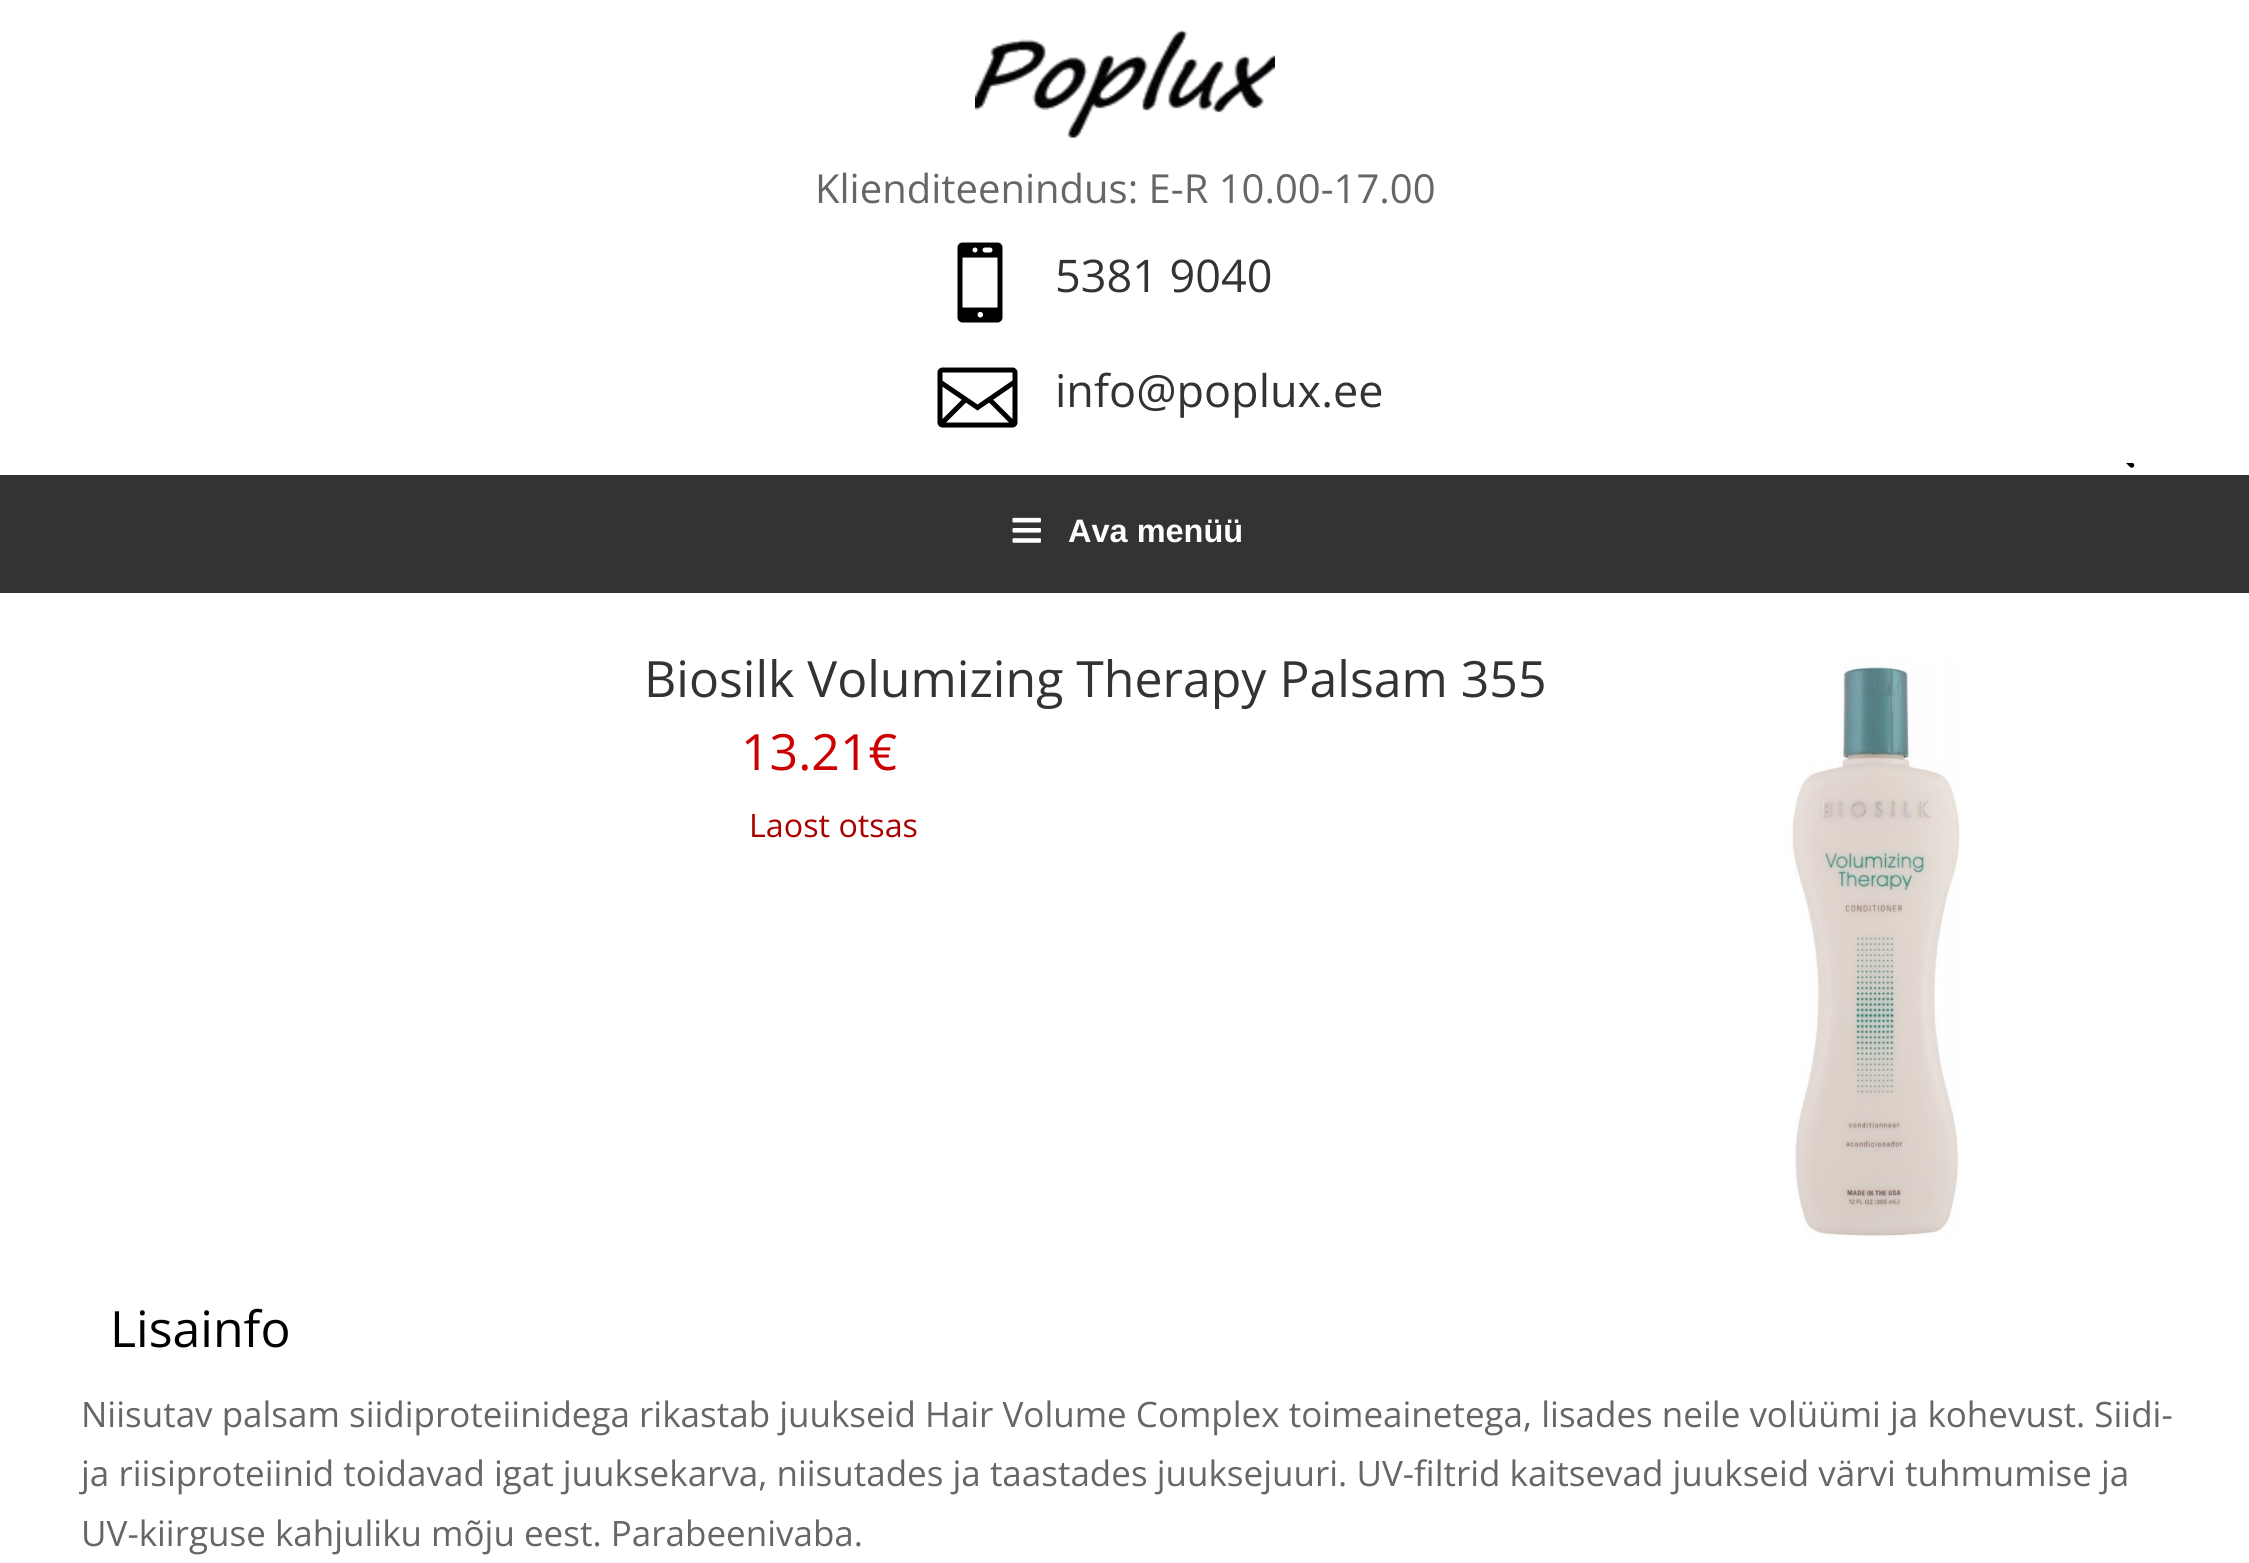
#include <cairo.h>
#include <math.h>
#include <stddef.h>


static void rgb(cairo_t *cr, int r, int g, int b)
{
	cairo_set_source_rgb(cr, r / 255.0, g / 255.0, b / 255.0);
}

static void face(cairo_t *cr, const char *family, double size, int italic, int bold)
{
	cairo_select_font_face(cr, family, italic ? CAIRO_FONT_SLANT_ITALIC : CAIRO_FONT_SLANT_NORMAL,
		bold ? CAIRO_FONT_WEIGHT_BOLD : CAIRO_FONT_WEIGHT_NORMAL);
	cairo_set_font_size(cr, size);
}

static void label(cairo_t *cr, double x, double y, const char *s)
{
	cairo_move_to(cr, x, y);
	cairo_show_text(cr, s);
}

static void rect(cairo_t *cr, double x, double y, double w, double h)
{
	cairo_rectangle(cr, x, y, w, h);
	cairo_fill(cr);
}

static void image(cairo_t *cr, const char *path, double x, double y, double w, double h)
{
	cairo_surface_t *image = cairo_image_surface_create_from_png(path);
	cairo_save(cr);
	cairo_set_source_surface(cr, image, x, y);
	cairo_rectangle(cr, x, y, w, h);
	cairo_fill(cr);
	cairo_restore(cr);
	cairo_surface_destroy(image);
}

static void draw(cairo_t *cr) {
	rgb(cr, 255, 255, 255);
	cairo_paint(cr);
	rgb(cr, 0, 0, 0);
	cairo_new_path(cr);
	cairo_move_to(cr, 2119, 452.5);
	cairo_curve_to(cr, 2120, 451.5, 2121.5, 451.5, 2122.5, 452.5);
	cairo_line_to(cr, 2133.5, 463.5);
	cairo_curve_to(cr, 2134.5, 464, 2134.5, 466, 2133.5, 467);
	cairo_curve_to(cr, 2132.5, 468, 2131, 468, 2130, 467);
	cairo_line_to(cr, 2119, 456);
	cairo_curve_to(cr, 2118, 455, 2118, 453.5, 2119, 452.5);
	cairo_close_path(cr);
	cairo_fill(cr);
	rgb(cr, 255, 255, 255);
	rect(cr, 2118, 451, 15, 12);
	image(cr, "image0.png", 975, 30, 300, 108);
	face(cr, "Open Sans", 40, 0, 0);
	rgb(cr, 102, 102, 102);
	label(cr, 815, 203, "Klienditeenindus: E-R 10.00-17.00");
	image(cr, "image1.png", 957, 242, 46, 81);
	face(cr, "Open Sans", 45, 0, 0);
	rgb(cr, 51, 51, 51);
	label(cr, 1055, 292, "5381 9040");
	image(cr, "image2.png", 937, 367, 81, 61);
	label(cr, 1055, 407, "info@poplux.ee");
	rect(cr, 0, 475, 2249, 118);
	image(cr, "image3.png", 1012, 517, 29, 26);
	face(cr, "Liberation Sans", 32.5, 0, 1);
	rgb(cr, 254, 254, 254);
	label(cr, 1068, 542, "Ava menüü");
	face(cr, "Open Sans", 50, 0, 0);
	rgb(cr, 51, 51, 51);
	label(cr, 644, 697, "Biosilk Volumizing Therapy Palsam 355");
	rgb(cr, 204, 0, 0);
	label(cr, 741, 770, "13.21€");
	image(cr, "image4.png", 1557, 659, 404, 579);
	face(cr, "Open Sans", 32.25, 0, 0);
	rgb(cr, 170, 0, 0);
	label(cr, 749, 837, "Laost otsas");
	face(cr, "Open Sans", 50, 0, 0);
	rgb(cr, 0, 0, 0);
	label(cr, 110, 1347, "Lisainfo");
	face(cr, "Open Sans", 35, 0, 0);
	rgb(cr, 102, 102, 102);
	label(cr, 81, 1427, "Niisutav palsam siidiproteiinidega rikastab juukseid Hair Volume Complex toimeainetega, lisades neile volüümi ja kohevust. Siidi-");
	label(cr, 81, 1486, "ja riisiproteiinid toidavad igat juuksekarva, niisutades ja taastades juuksejuuri. UV-filtrid kaitsevad juukseid värvi tuhmumise ja");
	label(cr, 81, 1546, "UV-kiirguse kahjuliku mõju eest. Parabeenivaba.");
}

int main(void) {
	cairo_surface_t *surface = cairo_image_surface_create(CAIRO_FORMAT_RGB24, 2249, 1563);
	cairo_t *cr = cairo_create(surface);
	cairo_font_options_t *options = cairo_font_options_create();
	cairo_font_options_set_hint_metrics(options, CAIRO_HINT_METRICS_OFF);
	cairo_font_options_set_hint_style(options, CAIRO_HINT_STYLE_NONE);
	cairo_set_font_options(cr, options);
	cairo_set_miter_limit(cr, 4);
	draw(cr);
	cairo_surface_write_to_png(surface, "render.png");
	cairo_font_options_destroy(options);
	cairo_destroy(cr);
	cairo_surface_destroy(surface);
	return 0;
}
